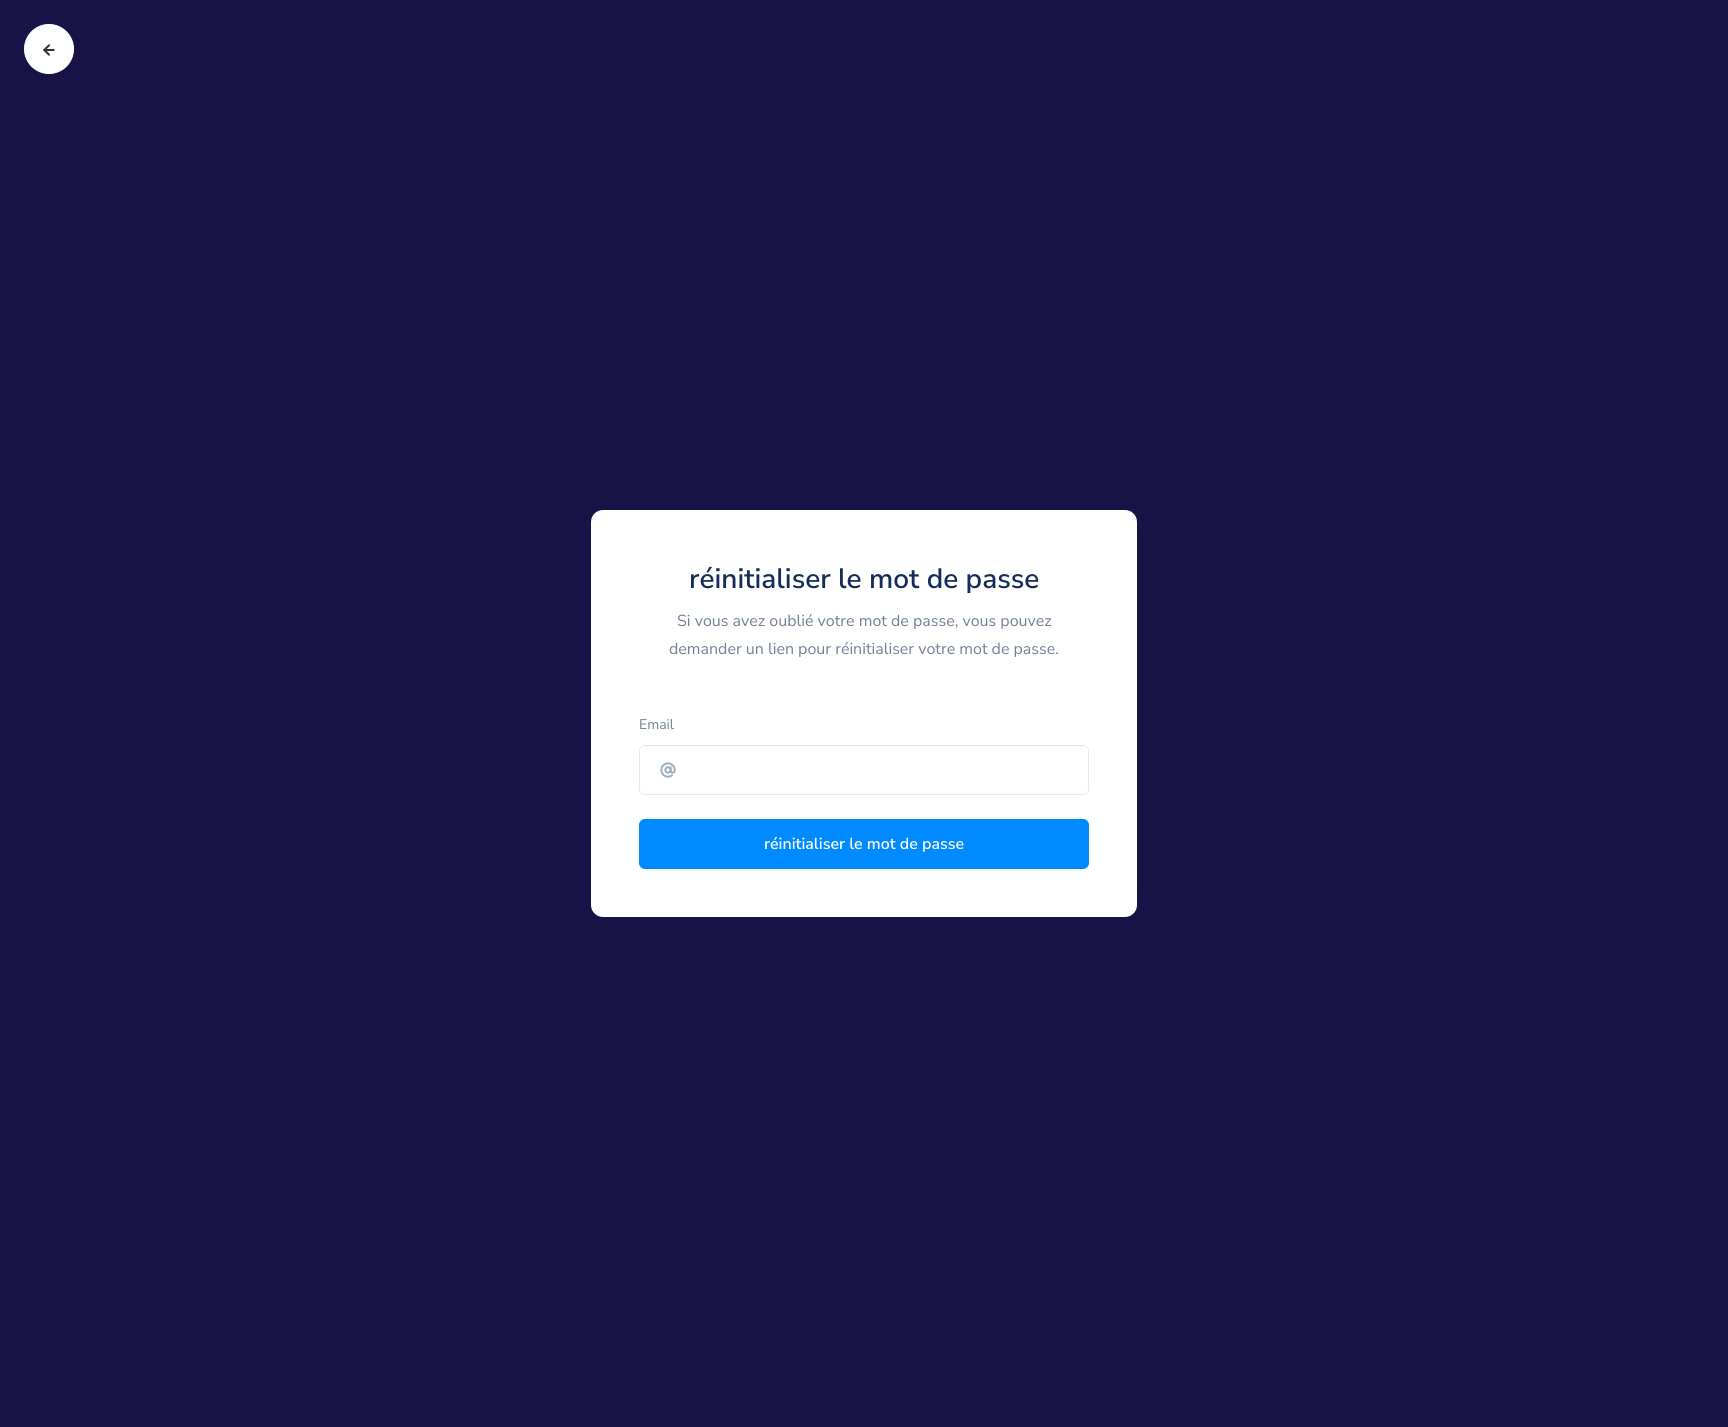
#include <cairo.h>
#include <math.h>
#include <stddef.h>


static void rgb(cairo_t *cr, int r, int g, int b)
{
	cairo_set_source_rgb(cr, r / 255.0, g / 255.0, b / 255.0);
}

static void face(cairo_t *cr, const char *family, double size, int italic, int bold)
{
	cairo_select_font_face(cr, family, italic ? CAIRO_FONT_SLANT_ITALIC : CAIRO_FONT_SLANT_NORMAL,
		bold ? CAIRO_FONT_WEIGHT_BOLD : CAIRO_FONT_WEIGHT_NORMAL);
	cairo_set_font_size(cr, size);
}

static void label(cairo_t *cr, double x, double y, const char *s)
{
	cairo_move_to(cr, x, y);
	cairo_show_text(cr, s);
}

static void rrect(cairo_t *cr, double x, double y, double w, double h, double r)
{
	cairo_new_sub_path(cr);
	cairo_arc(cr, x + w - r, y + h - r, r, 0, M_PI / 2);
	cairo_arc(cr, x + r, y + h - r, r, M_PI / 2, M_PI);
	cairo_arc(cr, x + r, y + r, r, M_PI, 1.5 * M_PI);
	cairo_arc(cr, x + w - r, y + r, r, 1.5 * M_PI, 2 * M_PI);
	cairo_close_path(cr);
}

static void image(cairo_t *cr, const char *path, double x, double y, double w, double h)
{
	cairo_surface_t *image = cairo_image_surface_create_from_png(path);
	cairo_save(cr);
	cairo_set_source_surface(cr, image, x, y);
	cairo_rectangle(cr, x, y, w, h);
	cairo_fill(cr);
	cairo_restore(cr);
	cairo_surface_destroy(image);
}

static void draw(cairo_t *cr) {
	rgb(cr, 23, 19, 71);
	cairo_paint(cr);
	rgb(cr, 255, 255, 255);
	cairo_arc(cr, 49, 49, 24.5, 0, 2 * M_PI);
	cairo_fill_preserve(cr);
	cairo_set_line_width(cr, 1);
	cairo_stroke(cr);
	image(cr, "image0.png", 43, 44, 12, 12);
	rrect(cr, 591, 510, 546, 407, 12);
	cairo_fill(cr);
	face(cr, "Nunito Sans SemiBold", 28, 0, 0);
	rgb(cr, 21, 44, 91);
	label(cr, 689, 588, "réinitialiser le mot de passe");
	face(cr, "Nunito Sans", 16, 0, 0);
	rgb(cr, 113, 128, 150);
	label(cr, 677, 626, "Si vous avez oublié votre mot de passe, vous pouvez");
	label(cr, 669, 654, "demander un lien pour réinitialiser votre mot de passe.");
	face(cr, "Nunito Sans", 14, 0, 0);
	label(cr, 639, 729, "Email");
	rgb(cr, 226, 232, 240);
	cairo_set_fill_rule(cr, CAIRO_FILL_RULE_EVEN_ODD);
	cairo_new_path(cr);
	cairo_move_to(cr, 645, 745);
	cairo_line_to(cr, 696, 745);
	cairo_line_to(cr, 696, 795);
	cairo_line_to(cr, 645, 795);
	cairo_curve_to(cr, 642, 795, 639, 792, 639, 789);
	cairo_line_to(cr, 639, 751);
	cairo_curve_to(cr, 639, 748, 642, 745, 645, 745);
	cairo_close_path(cr);
	cairo_move_to(cr, 645, 746);
	cairo_line_to(cr, 696, 746);
	cairo_line_to(cr, 696, 794);
	cairo_line_to(cr, 645, 794);
	cairo_curve_to(cr, 642, 794, 640, 792, 640, 789);
	cairo_line_to(cr, 640, 751);
	cairo_curve_to(cr, 640, 748, 642, 746, 645, 746);
	cairo_close_path(cr);
	cairo_fill(cr);
	image(cr, "image1.png", 660, 762, 16, 16);
	cairo_new_path(cr);
	cairo_move_to(cr, 695, 745);
	cairo_line_to(cr, 1083, 745);
	cairo_curve_to(cr, 1086, 745, 1089, 748, 1089, 751);
	cairo_line_to(cr, 1089, 789);
	cairo_curve_to(cr, 1089, 792, 1086, 795, 1083, 795);
	cairo_line_to(cr, 695, 795);
	cairo_close_path(cr);
	cairo_move_to(cr, 695, 746);
	cairo_line_to(cr, 1083, 746);
	cairo_curve_to(cr, 1086, 746, 1088, 748, 1088, 751);
	cairo_line_to(cr, 1088, 789);
	cairo_curve_to(cr, 1088, 792, 1086, 794, 1083, 794);
	cairo_line_to(cr, 695, 794);
	cairo_close_path(cr);
	cairo_fill(cr);
	rgb(cr, 0, 138, 255);
	rrect(cr, 639.5, 819.5, 449, 49, 5.5);
	cairo_fill_preserve(cr);
	cairo_stroke(cr);
	face(cr, "Nunito Sans SemiBold", 16, 0, 0);
	rgb(cr, 255, 255, 255);
	label(cr, 764, 849, "réinitialiser le mot de passe");
}

int main(void) {
	cairo_surface_t *surface = cairo_image_surface_create(CAIRO_FORMAT_RGB24, 1728, 1427);
	cairo_t *cr = cairo_create(surface);
	cairo_font_options_t *options = cairo_font_options_create();
	cairo_font_options_set_hint_metrics(options, CAIRO_HINT_METRICS_OFF);
	cairo_font_options_set_hint_style(options, CAIRO_HINT_STYLE_NONE);
	cairo_set_font_options(cr, options);
	cairo_set_miter_limit(cr, 4);
	draw(cr);
	cairo_surface_write_to_png(surface, "render.png");
	cairo_font_options_destroy(options);
	cairo_destroy(cr);
	cairo_surface_destroy(surface);
	return 0;
}
